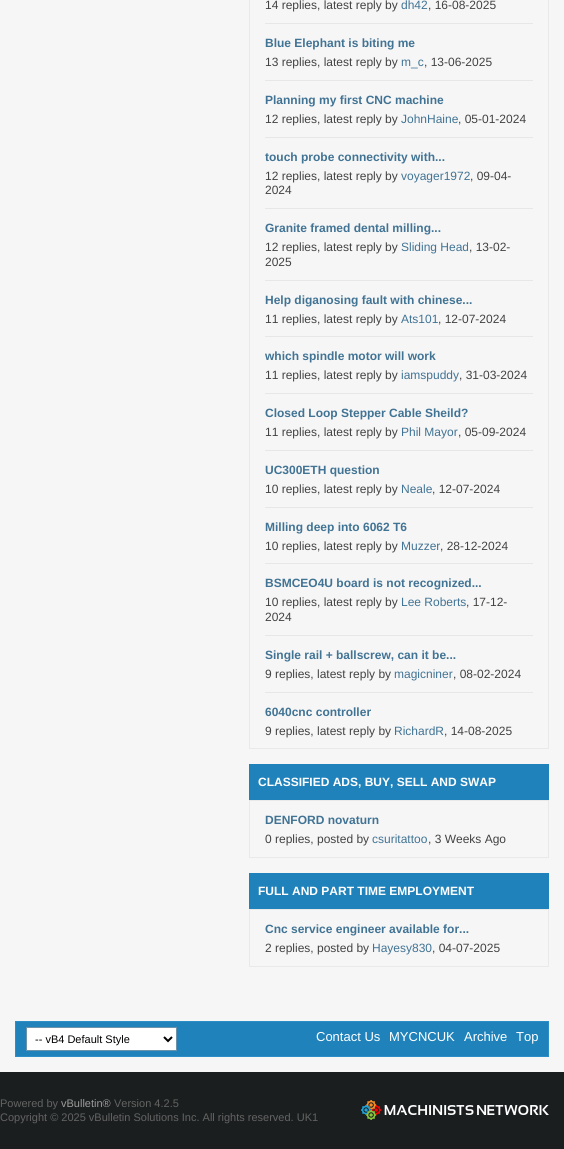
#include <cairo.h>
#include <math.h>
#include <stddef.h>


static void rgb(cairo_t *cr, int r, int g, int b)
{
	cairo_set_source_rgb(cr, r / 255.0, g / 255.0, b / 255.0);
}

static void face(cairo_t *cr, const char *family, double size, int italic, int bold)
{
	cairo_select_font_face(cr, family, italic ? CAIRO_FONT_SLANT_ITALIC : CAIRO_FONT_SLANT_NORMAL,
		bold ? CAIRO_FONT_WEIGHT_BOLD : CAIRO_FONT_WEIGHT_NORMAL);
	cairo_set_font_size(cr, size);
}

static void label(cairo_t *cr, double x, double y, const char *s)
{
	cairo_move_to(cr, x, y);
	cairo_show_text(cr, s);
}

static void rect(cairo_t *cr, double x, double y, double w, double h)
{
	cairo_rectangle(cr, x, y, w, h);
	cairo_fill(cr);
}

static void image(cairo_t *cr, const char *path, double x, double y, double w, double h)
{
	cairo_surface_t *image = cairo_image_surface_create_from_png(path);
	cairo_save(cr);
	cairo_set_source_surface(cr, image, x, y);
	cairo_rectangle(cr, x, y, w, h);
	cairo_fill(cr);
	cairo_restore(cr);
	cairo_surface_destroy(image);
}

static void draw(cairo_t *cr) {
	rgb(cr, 27, 30, 31);
	cairo_paint(cr);
	rgb(cr, 246, 246, 246);
	rect(cr, 0, 0, 564, 1072);
	cairo_rectangle(cr, 249.5, -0.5, 299, 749);
	rgb(cr, 233, 233, 233);
	cairo_set_line_width(cr, 1);
	cairo_stroke(cr);
	face(cr, "Liberation Sans", 12, 0, 0);
	rgb(cr, 66, 66, 66);
	label(cr, 265, 9, "14 replies, latest reply by");
	rgb(cr, 65, 115, 148);
	label(cr, 401, 9, "dh42");
	rgb(cr, 66, 66, 66);
	label(cr, 428, 9, ", 16-08-2025");
	rgb(cr, 231, 231, 231);
	rect(cr, 265, 23, 268, 1);
	face(cr, "Liberation Sans", 12, 0, 1);
	rgb(cr, 65, 115, 148);
	label(cr, 265, 47, "Blue Elephant is biting me");
	face(cr, "Liberation Sans", 12, 0, 0);
	rgb(cr, 66, 66, 66);
	label(cr, 265, 66, "13 replies, latest reply by");
	rgb(cr, 65, 115, 148);
	label(cr, 401, 66, "m_c");
	rgb(cr, 66, 66, 66);
	label(cr, 424, 66, ", 13-06-2025");
	rgb(cr, 231, 231, 231);
	rect(cr, 265, 80, 268, 1);
	face(cr, "Liberation Sans", 12, 0, 1);
	rgb(cr, 65, 115, 148);
	label(cr, 265, 104, "Planning my first CNC machine");
	face(cr, "Liberation Sans", 12, 0, 0);
	rgb(cr, 66, 66, 66);
	label(cr, 265, 123, "12 replies, latest reply by");
	rgb(cr, 65, 115, 148);
	label(cr, 401, 123, "JohnHaine");
	rgb(cr, 66, 66, 66);
	label(cr, 458, 123, ", 05-01-2024");
	rgb(cr, 231, 231, 231);
	rect(cr, 265, 137, 268, 1);
	face(cr, "Liberation Sans", 12, 0, 1);
	rgb(cr, 65, 115, 148);
	label(cr, 265, 161, "touch probe connectivity with...");
	face(cr, "Liberation Sans", 12, 0, 0);
	rgb(cr, 66, 66, 66);
	label(cr, 265, 180, "12 replies, latest reply by");
	rgb(cr, 65, 115, 148);
	label(cr, 401, 180, "voyager1972");
	rgb(cr, 66, 66, 66);
	label(cr, 470, 180, ", 09-04-");
	label(cr, 265, 194, "2024");
	rgb(cr, 231, 231, 231);
	rect(cr, 265, 208, 268, 1);
	face(cr, "Liberation Sans", 12, 0, 1);
	rgb(cr, 65, 115, 148);
	label(cr, 265, 232, "Granite framed dental milling...");
	face(cr, "Liberation Sans", 12, 0, 0);
	rgb(cr, 66, 66, 66);
	label(cr, 265, 251, "12 replies, latest reply by");
	rgb(cr, 65, 115, 148);
	label(cr, 401, 251, "Sliding Head");
	rgb(cr, 66, 66, 66);
	label(cr, 469, 251, ", 13-02-");
	label(cr, 265, 266, "2025");
	rgb(cr, 231, 231, 231);
	rect(cr, 265, 280, 268, 1);
	face(cr, "Liberation Sans", 12, 0, 1);
	rgb(cr, 65, 115, 148);
	label(cr, 265, 304, "Help diganosing fault with chinese...");
	face(cr, "Liberation Sans", 12, 0, 0);
	rgb(cr, 66, 66, 66);
	label(cr, 265, 323, "11 replies, latest reply by");
	rgb(cr, 65, 115, 148);
	label(cr, 401, 323, "Ats101");
	rgb(cr, 66, 66, 66);
	label(cr, 438, 323, ", 12-07-2024");
	rgb(cr, 231, 231, 231);
	rect(cr, 265, 336, 268, 1);
	face(cr, "Liberation Sans", 12, 0, 1);
	rgb(cr, 65, 115, 148);
	label(cr, 265, 360, "which spindle motor will work");
	face(cr, "Liberation Sans", 12, 0, 0);
	rgb(cr, 66, 66, 66);
	label(cr, 265, 379, "11 replies, latest reply by");
	rgb(cr, 65, 115, 148);
	label(cr, 401, 379, "iamspuddy");
	rgb(cr, 66, 66, 66);
	label(cr, 459, 379, ", 31-03-2024");
	rgb(cr, 231, 231, 231);
	rect(cr, 265, 393, 268, 1);
	face(cr, "Liberation Sans", 12, 0, 1);
	rgb(cr, 65, 115, 148);
	label(cr, 265, 417, "Closed Loop Stepper Cable Sheild?");
	face(cr, "Liberation Sans", 12, 0, 0);
	rgb(cr, 66, 66, 66);
	label(cr, 265, 436, "11 replies, latest reply by");
	rgb(cr, 65, 115, 148);
	label(cr, 401, 436, "Phil Mayor");
	rgb(cr, 66, 66, 66);
	label(cr, 458, 436, ", 05-09-2024");
	rgb(cr, 231, 231, 231);
	rect(cr, 265, 450, 268, 1);
	face(cr, "Liberation Sans", 12, 0, 1);
	rgb(cr, 65, 115, 148);
	label(cr, 265, 474, "UC300ETH question");
	face(cr, "Liberation Sans", 12, 0, 0);
	rgb(cr, 66, 66, 66);
	label(cr, 265, 493, "10 replies, latest reply by");
	rgb(cr, 65, 115, 148);
	label(cr, 401, 493, "Neale");
	rgb(cr, 66, 66, 66);
	label(cr, 432, 493, ", 12-07-2024");
	rgb(cr, 231, 231, 231);
	rect(cr, 265, 507, 268, 1);
	face(cr, "Liberation Sans", 12, 0, 1);
	rgb(cr, 65, 115, 148);
	label(cr, 265, 531, "Milling deep into 6062 T6");
	face(cr, "Liberation Sans", 12, 0, 0);
	rgb(cr, 66, 66, 66);
	label(cr, 265, 550, "10 replies, latest reply by");
	rgb(cr, 65, 115, 148);
	label(cr, 401, 550, "Muzzer");
	rgb(cr, 66, 66, 66);
	label(cr, 440, 550, ", 28-12-2024");
	rgb(cr, 231, 231, 231);
	rect(cr, 265, 563, 268, 1);
	face(cr, "Liberation Sans", 12, 0, 1);
	rgb(cr, 65, 115, 148);
	label(cr, 265, 587, "BSMCEO4U board is not recognized...");
	face(cr, "Liberation Sans", 12, 0, 0);
	rgb(cr, 66, 66, 66);
	label(cr, 265, 606, "10 replies, latest reply by");
	rgb(cr, 65, 115, 148);
	label(cr, 401, 606, "Lee Roberts");
	rgb(cr, 66, 66, 66);
	label(cr, 466, 606, ", 17-12-");
	label(cr, 265, 621, "2024");
	rgb(cr, 231, 231, 231);
	rect(cr, 265, 635, 268, 1);
	face(cr, "Liberation Sans", 12, 0, 1);
	rgb(cr, 65, 115, 148);
	label(cr, 265, 659, "Single rail + ballscrew, can it be...");
	face(cr, "Liberation Sans", 12, 0, 0);
	rgb(cr, 66, 66, 66);
	label(cr, 265, 678, "9 replies, latest reply by");
	rgb(cr, 65, 115, 148);
	label(cr, 394, 678, "magicniner");
	rgb(cr, 66, 66, 66);
	label(cr, 453, 678, ", 08-02-2024");
	rgb(cr, 231, 231, 231);
	rect(cr, 265, 692, 268, 1);
	face(cr, "Liberation Sans", 12, 0, 1);
	rgb(cr, 65, 115, 148);
	label(cr, 265, 716, "6040cnc controller");
	face(cr, "Liberation Sans", 12, 0, 0);
	rgb(cr, 66, 66, 66);
	label(cr, 265, 735, "9 replies, latest reply by");
	rgb(cr, 65, 115, 148);
	label(cr, 394, 735, "RichardR");
	rgb(cr, 66, 66, 66);
	label(cr, 444, 735, ", 14-08-2025");
	rgb(cr, 31, 130, 187);
	rect(cr, 249, 764, 300, 36);
	face(cr, "Liberation Sans", 12, 0, 1);
	rgb(cr, 255, 255, 255);
	label(cr, 258, 786, "CLASSIFIED ADS, BUY, SELL AND SWAP");
	cairo_rectangle(cr, 249.5, 800.5, 299, 57);
	rgb(cr, 233, 233, 233);
	cairo_stroke(cr);
	rgb(cr, 65, 115, 148);
	label(cr, 265, 824, "DENFORD novaturn");
	face(cr, "Liberation Sans", 12, 0, 0);
	rgb(cr, 66, 66, 66);
	label(cr, 265, 843, "0 replies, posted by");
	rgb(cr, 65, 115, 148);
	label(cr, 372, 843, "csuritattoo");
	rgb(cr, 66, 66, 66);
	label(cr, 428, 843, ", 3 Weeks Ago");
	rgb(cr, 31, 130, 187);
	rect(cr, 249, 873, 300, 36);
	face(cr, "Liberation Sans", 12, 0, 1);
	rgb(cr, 255, 255, 255);
	label(cr, 258, 895, "FULL AND PART TIME EMPLOYMENT");
	cairo_rectangle(cr, 249.5, 909.5, 299, 57);
	rgb(cr, 233, 233, 233);
	cairo_stroke(cr);
	rgb(cr, 65, 115, 148);
	label(cr, 265, 933, "Cnc service engineer available for...");
	face(cr, "Liberation Sans", 12, 0, 0);
	rgb(cr, 66, 66, 66);
	label(cr, 265, 952, "2 replies, posted by");
	rgb(cr, 65, 115, 148);
	label(cr, 372, 952, "Hayesy830");
	rgb(cr, 66, 66, 66);
	label(cr, 432, 952, ", 04-07-2025");
	rgb(cr, 31, 130, 187);
	cairo_rectangle(cr, 15.5, 1021.5, 533, 35);
	cairo_fill_preserve(cr);
	rgb(cr, 43, 142, 199);
	cairo_stroke(cr);
	rgb(cr, 255, 255, 255);
	cairo_rectangle(cr, 26.5, 1027.5, 150, 23);
	cairo_fill_preserve(cr);
	rgb(cr, 107, 145, 171);
	cairo_stroke(cr);
	cairo_new_path(cr);
	cairo_move_to(cr, 164, 1037);
	cairo_line_to(cr, 168, 1041);
	cairo_line_to(cr, 172, 1037);
	rgb(cr, 0, 0, 0);
	cairo_set_line_width(cr, 2);
	cairo_stroke(cr);
	face(cr, "Liberation Sans", 11, 0, 0);
	label(cr, 35, 1043, "-- vB4 Default Style");
	face(cr, "Liberation Sans", 13, 0, 0);
	rgb(cr, 255, 255, 255);
	label(cr, 316, 1041, "Contact Us");
	label(cr, 389, 1041, "MYCNCUK");
	label(cr, 464, 1041, "Archive");
	label(cr, 516, 1041, "Top");
	face(cr, "Liberation Sans", 11, 0, 0);
	rgb(cr, 99, 99, 99);
	label(cr, 0, 1107, "Powered by");
	rgb(cr, 156, 156, 156);
	label(cr, 61, 1107, "vBulletin®");
	rgb(cr, 99, 99, 99);
	label(cr, 114, 1107, "Version 4.2.5");
	label(cr, 0, 1121, "Copyright © 2025 vBulletin Solutions Inc. All rights reserved. UK1");
	image(cr, "image0.png", 361, 1100, 188, 20);
}

int main(void) {
	cairo_surface_t *surface = cairo_image_surface_create(CAIRO_FORMAT_RGB24, 564, 1149);
	cairo_t *cr = cairo_create(surface);
	cairo_font_options_t *options = cairo_font_options_create();
	cairo_font_options_set_hint_metrics(options, CAIRO_HINT_METRICS_OFF);
	cairo_font_options_set_hint_style(options, CAIRO_HINT_STYLE_NONE);
	cairo_set_font_options(cr, options);
	cairo_set_miter_limit(cr, 4);
	draw(cr);
	cairo_surface_write_to_png(surface, "render.png");
	cairo_font_options_destroy(options);
	cairo_destroy(cr);
	cairo_surface_destroy(surface);
	return 0;
}
